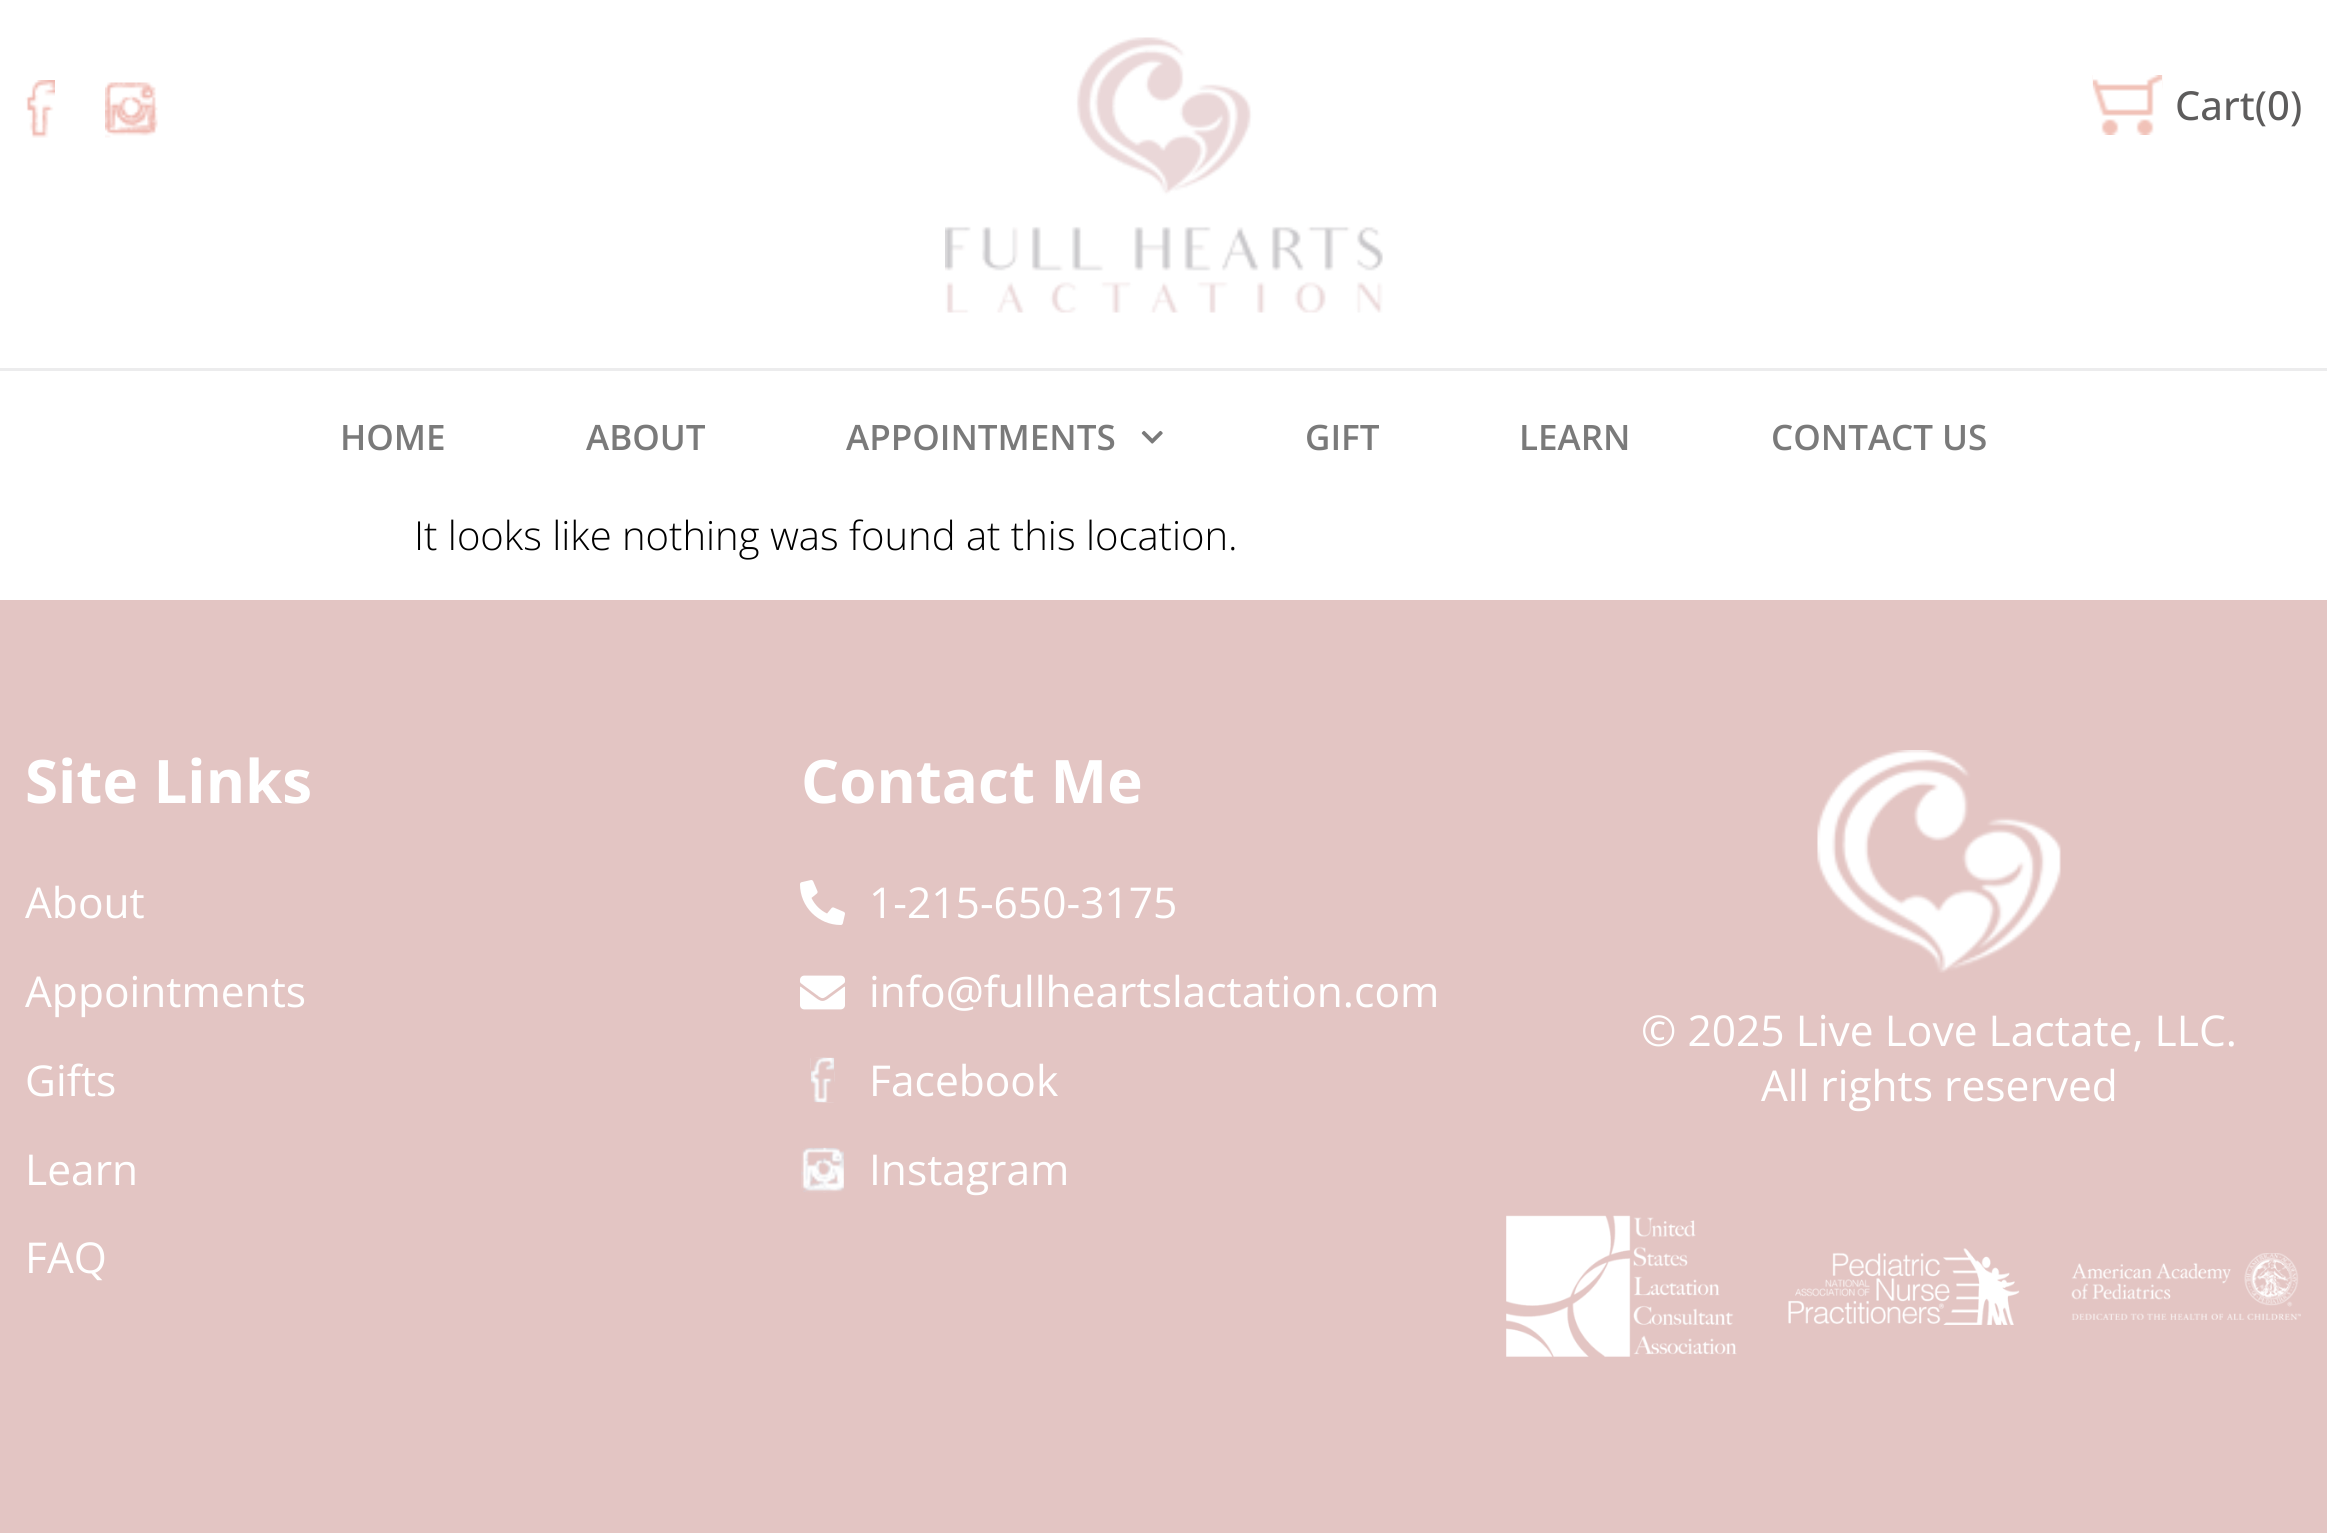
#include <cairo.h>
#include <math.h>
#include <stddef.h>


static void rgb(cairo_t *cr, int r, int g, int b)
{
	cairo_set_source_rgb(cr, r / 255.0, g / 255.0, b / 255.0);
}

static void face(cairo_t *cr, const char *family, double size, int italic, int bold)
{
	cairo_select_font_face(cr, family, italic ? CAIRO_FONT_SLANT_ITALIC : CAIRO_FONT_SLANT_NORMAL,
		bold ? CAIRO_FONT_WEIGHT_BOLD : CAIRO_FONT_WEIGHT_NORMAL);
	cairo_set_font_size(cr, size);
}

static void label(cairo_t *cr, double x, double y, const char *s)
{
	cairo_move_to(cr, x, y);
	cairo_show_text(cr, s);
}

static void rect(cairo_t *cr, double x, double y, double w, double h)
{
	cairo_rectangle(cr, x, y, w, h);
	cairo_fill(cr);
}

static void image(cairo_t *cr, const char *path, double x, double y, double w, double h)
{
	cairo_surface_t *image = cairo_image_surface_create_from_png(path);
	cairo_save(cr);
	cairo_set_source_surface(cr, image, x, y);
	cairo_rectangle(cr, x, y, w, h);
	cairo_fill(cr);
	cairo_restore(cr);
	cairo_surface_destroy(image);
}

static void draw(cairo_t *cr) {
	rgb(cr, 255, 255, 255);
	cairo_paint(cr);
	rgb(cr, 236, 236, 237);
	rect(cr, 0, 368, 2327, 3);
	image(cr, "image0.png", 25, 80, 30, 58);
	image(cr, "image1.png", 105, 82, 53, 56);
	image(cr, "image2.png", 945, 37, 438, 276);
	image(cr, "image3.png", 2092, 75, 71, 60);
	face(cr, "Open Sans Medium", 40, 0, 0);
	rgb(cr, 93, 92, 92);
	label(cr, 2175, 120, "Cart(0)");
	face(cr, "Open Sans SemiBold", 35, 0, 0);
	rgb(cr, 122, 122, 122);
	label(cr, 340, 450, "HOME");
	label(cr, 586, 450, "ABOUT");
	label(cr, 846, 450, "APPOINTMENTS");
	image(cr, "image4.png", 1141, 430, 22, 14);
	label(cr, 1305, 450, "GIFT");
	label(cr, 1519, 450, "LEARN");
	label(cr, 1771, 450, "CONTACT US");
	face(cr, "Open Sans Light", 40, 0, 0);
	rgb(cr, 0, 0, 0);
	label(cr, 414, 550, "It looks like nothing was found at this location.");
	rgb(cr, 227, 197, 195);
	rect(cr, 0, 600, 2327, 933);
	face(cr, "Open Sans", 60, 0, 1);
	rgb(cr, 255, 255, 255);
	label(cr, 25, 803, "Site Links");
	face(cr, "Open Sans", 42.5, 0, 0);
	label(cr, 25, 918, "About");
	label(cr, 25, 1007, "Appointments");
	label(cr, 25, 1096, "Gifts");
	label(cr, 25, 1185, "Learn");
	label(cr, 25, 1273, "FAQ");
	face(cr, "Open Sans", 60, 0, 1);
	label(cr, 801, 803, "Contact Me");
	image(cr, "image5.png", 800, 880, 45, 45);
	face(cr, "Open Sans", 42.5, 0, 0);
	label(cr, 869, 918, "1-215-650-3175");
	image(cr, "image6.png", 800, 975, 45, 35);
	label(cr, 869, 1007, "info@fullheartslactation.com");
	image(cr, "image7.png", 810, 1057, 25, 46);
	label(cr, 869, 1096, "Facebook");
	image(cr, "image8.png", 801, 1147, 43, 46);
	label(cr, 869, 1185, "Instagram");
	image(cr, "image9.png", 1817, 750, 244, 223);
	label(cr, 1641, 1046, "© 2025 Live Love Lactate, LLC.");
	label(cr, 1761, 1101, "All rights reserved");
	image(cr, "image10.png", 1506, 1215, 231, 142);
	image(cr, "image11.png", 1788, 1248, 232, 77);
	image(cr, "image12.png", 2071, 1253, 230, 67);
}

int main(void) {
	cairo_surface_t *surface = cairo_image_surface_create(CAIRO_FORMAT_RGB24, 2327, 1533);
	cairo_t *cr = cairo_create(surface);
	cairo_font_options_t *options = cairo_font_options_create();
	cairo_font_options_set_hint_metrics(options, CAIRO_HINT_METRICS_OFF);
	cairo_font_options_set_hint_style(options, CAIRO_HINT_STYLE_NONE);
	cairo_set_font_options(cr, options);
	cairo_set_miter_limit(cr, 4);
	draw(cr);
	cairo_surface_write_to_png(surface, "render.png");
	cairo_font_options_destroy(options);
	cairo_destroy(cr);
	cairo_surface_destroy(surface);
	return 0;
}
